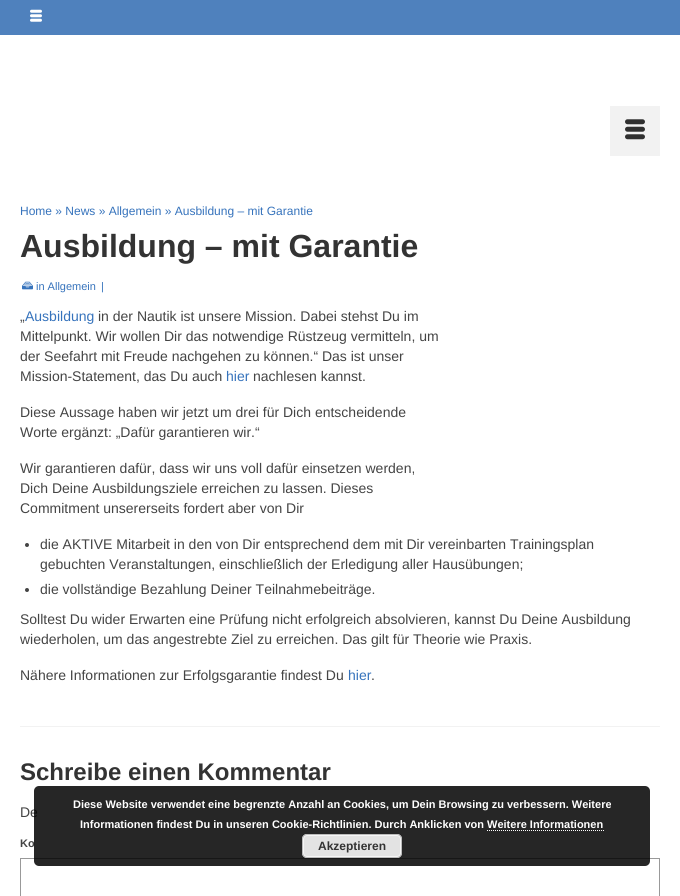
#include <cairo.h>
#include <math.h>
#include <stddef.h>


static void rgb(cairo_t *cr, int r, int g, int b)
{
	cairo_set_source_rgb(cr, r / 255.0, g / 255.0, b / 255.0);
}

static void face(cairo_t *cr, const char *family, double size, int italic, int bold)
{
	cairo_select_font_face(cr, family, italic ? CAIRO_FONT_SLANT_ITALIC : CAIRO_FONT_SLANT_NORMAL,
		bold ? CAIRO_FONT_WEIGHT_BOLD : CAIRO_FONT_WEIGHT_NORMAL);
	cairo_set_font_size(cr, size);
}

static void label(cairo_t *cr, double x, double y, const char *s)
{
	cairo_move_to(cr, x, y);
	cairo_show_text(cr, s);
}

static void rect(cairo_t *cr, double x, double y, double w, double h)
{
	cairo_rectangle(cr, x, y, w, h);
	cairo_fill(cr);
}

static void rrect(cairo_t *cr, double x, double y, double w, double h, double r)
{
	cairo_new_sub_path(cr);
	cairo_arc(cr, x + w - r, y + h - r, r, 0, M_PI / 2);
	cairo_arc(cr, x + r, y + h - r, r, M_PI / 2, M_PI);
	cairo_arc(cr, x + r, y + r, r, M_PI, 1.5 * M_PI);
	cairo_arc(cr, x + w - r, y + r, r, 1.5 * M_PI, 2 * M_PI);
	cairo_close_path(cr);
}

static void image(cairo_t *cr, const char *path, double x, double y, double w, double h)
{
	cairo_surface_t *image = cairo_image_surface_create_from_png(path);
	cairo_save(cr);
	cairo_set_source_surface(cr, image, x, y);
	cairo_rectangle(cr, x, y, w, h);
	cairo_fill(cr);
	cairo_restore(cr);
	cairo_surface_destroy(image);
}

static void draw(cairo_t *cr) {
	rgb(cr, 255, 255, 255);
	cairo_paint(cr);
	rgb(cr, 79, 129, 189);
	rect(cr, 0, 0, 680, 35);
	image(cr, "image0.png", 30, 9, 12, 13);
	rgb(cr, 242, 242, 242);
	rect(cr, 610, 106, 50, 50);
	image(cr, "image1.png", 625, 119, 20, 21);
	face(cr, "Liberation Sans", 12, 0, 0);
	rgb(cr, 54, 115, 188);
	label(cr, 20, 215, "Home » News » Allgemein » Ausbildung – mit Garantie");
	face(cr, "Liberation Sans", 32, 0, 1);
	rgb(cr, 51, 51, 51);
	label(cr, 20, 257, "Ausbildung – mit Garantie");
	image(cr, "image2.png", 22, 281, 11, 9);
	face(cr, "Liberation Sans", 11, 0, 0);
	rgb(cr, 54, 115, 188);
	label(cr, 36, 290, "in Allgemein");
	label(cr, 101, 290, "|");
	face(cr, "Liberation Sans", 14, 0, 0);
	rgb(cr, 68, 68, 68);
	label(cr, 20, 321, "„");
	rgb(cr, 54, 115, 188);
	label(cr, 25, 321, "Ausbildung");
	rgb(cr, 68, 68, 68);
	label(cr, 98, 321, "in der Nautik ist unsere Mission. Dabei stehst Du im");
	label(cr, 20, 341, "Mittelpunkt. Wir wollen Dir das notwendige Rüstzeug vermitteln, um");
	label(cr, 20, 361, "der Seefahrt mit Freude nachgehen zu können.“ Das ist unser");
	label(cr, 20, 381, "Mission-Statement, das Du auch");
	rgb(cr, 54, 115, 188);
	label(cr, 226, 381, "hier");
	rgb(cr, 68, 68, 68);
	label(cr, 253, 381, "nachlesen kannst.");
	label(cr, 20, 417, "Diese Aussage haben wir jetzt um drei für Dich entscheidende");
	label(cr, 20, 437, "Worte ergänzt: „Dafür garantieren wir.“");
	label(cr, 20, 473, "Wir garantieren dafür, dass wir uns voll dafür einsetzen werden,");
	label(cr, 20, 493, "Dich Deine Ausbildungsziele erreichen zu lassen. Dieses");
	label(cr, 20, 513, "Commitment unsererseits fordert aber von Dir");
	cairo_new_path(cr);
	cairo_arc(cr, 27, 545, 2, 0, 2 * M_PI);
	cairo_fill(cr);
	label(cr, 40, 549, "die AKTIVE Mitarbeit in den von Dir entsprechend dem mit Dir vereinbarten Trainingsplan");
	label(cr, 40, 569, "gebuchten Veranstaltungen, einschließlich der Erledigung aller Hausübungen;");
	cairo_new_path(cr);
	cairo_arc(cr, 27, 590, 2, 0, 2 * M_PI);
	cairo_fill(cr);
	label(cr, 40, 594, "die vollständige Bezahlung Deiner Teilnahmebeiträge.");
	label(cr, 20, 624, "Solltest Du wider Erwarten eine Prüfung nicht erfolgreich absolvieren, kannst Du Deine Ausbildung");
	label(cr, 20, 644, "wiederholen, um das angestrebte Ziel zu erreichen. Das gilt für Theorie wie Praxis.");
	label(cr, 20, 680, "Nähere Informationen zur Erfolgsgarantie findest Du");
	rgb(cr, 54, 115, 188);
	label(cr, 348, 680, "hier");
	rgb(cr, 68, 68, 68);
	label(cr, 371, 680, ".");
	rgb(cr, 242, 242, 242);
	rect(cr, 20, 726, 640, 1);
	face(cr, "Liberation Sans", 24, 0, 1);
	rgb(cr, 51, 51, 51);
	label(cr, 20, 780, "Schreibe einen Kommentar");
	face(cr, "Liberation Sans", 14, 0, 0);
	rgb(cr, 68, 68, 68);
	label(cr, 20, 817, "De");
	face(cr, "Liberation Sans", 11, 0, 1);
	label(cr, 20, 847, "Ko");
	cairo_rectangle(cr, 20.5, 858.5, 639, 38);
	rgb(cr, 153, 153, 153);
	cairo_set_line_width(cr, 1);
	cairo_stroke(cr);
	cairo_set_source_rgba(cr, 0, 0, 0, 0.85);
	rrect(cr, 34, 786, 616, 80, 5);
	cairo_fill(cr);
	rgb(cr, 255, 255, 255);
	label(cr, 73, 808, "Diese Website verwendet eine begrenzte Anzahl an Cookies, um Dein Browsing zu verbessern. Weitere");
	label(cr, 80, 828, "Informationen findest Du in unseren Cookie-Richtlinien. Durch Anklicken von Weitere Informationen");
	cairo_new_path(cr);
	cairo_move_to(cr, 487, 830.5);
	cairo_line_to(cr, 604, 830.5);
	cairo_set_dash(cr, (double[]){1, 1}, 2, 0);
	cairo_stroke(cr);
	rgb(cr, 227, 227, 227);
	rrect(cr, 302, 834, 100, 24, 5);
	cairo_fill(cr);
	rrect(cr, 303.5, 835.5, 97, 21, 3.5);
	rgb(cr, 246, 246, 246);
	cairo_set_dash(cr, NULL, 0, 0);
	cairo_stroke(cr);
	rrect(cr, 302.5, 834.5, 99, 23, 4.5);
	rgb(cr, 187, 187, 187);
	cairo_stroke(cr);
	face(cr, "Liberation Sans", 12, 0, 1);
	rgb(cr, 51, 51, 51);
	label(cr, 318, 850, "Akzeptieren");
}

int main(void) {
	cairo_surface_t *surface = cairo_image_surface_create(CAIRO_FORMAT_RGB24, 680, 896);
	cairo_t *cr = cairo_create(surface);
	cairo_font_options_t *options = cairo_font_options_create();
	cairo_font_options_set_hint_metrics(options, CAIRO_HINT_METRICS_OFF);
	cairo_font_options_set_hint_style(options, CAIRO_HINT_STYLE_NONE);
	cairo_set_font_options(cr, options);
	cairo_set_miter_limit(cr, 4);
	draw(cr);
	cairo_surface_write_to_png(surface, "render.png");
	cairo_font_options_destroy(options);
	cairo_destroy(cr);
	cairo_surface_destroy(surface);
	return 0;
}
